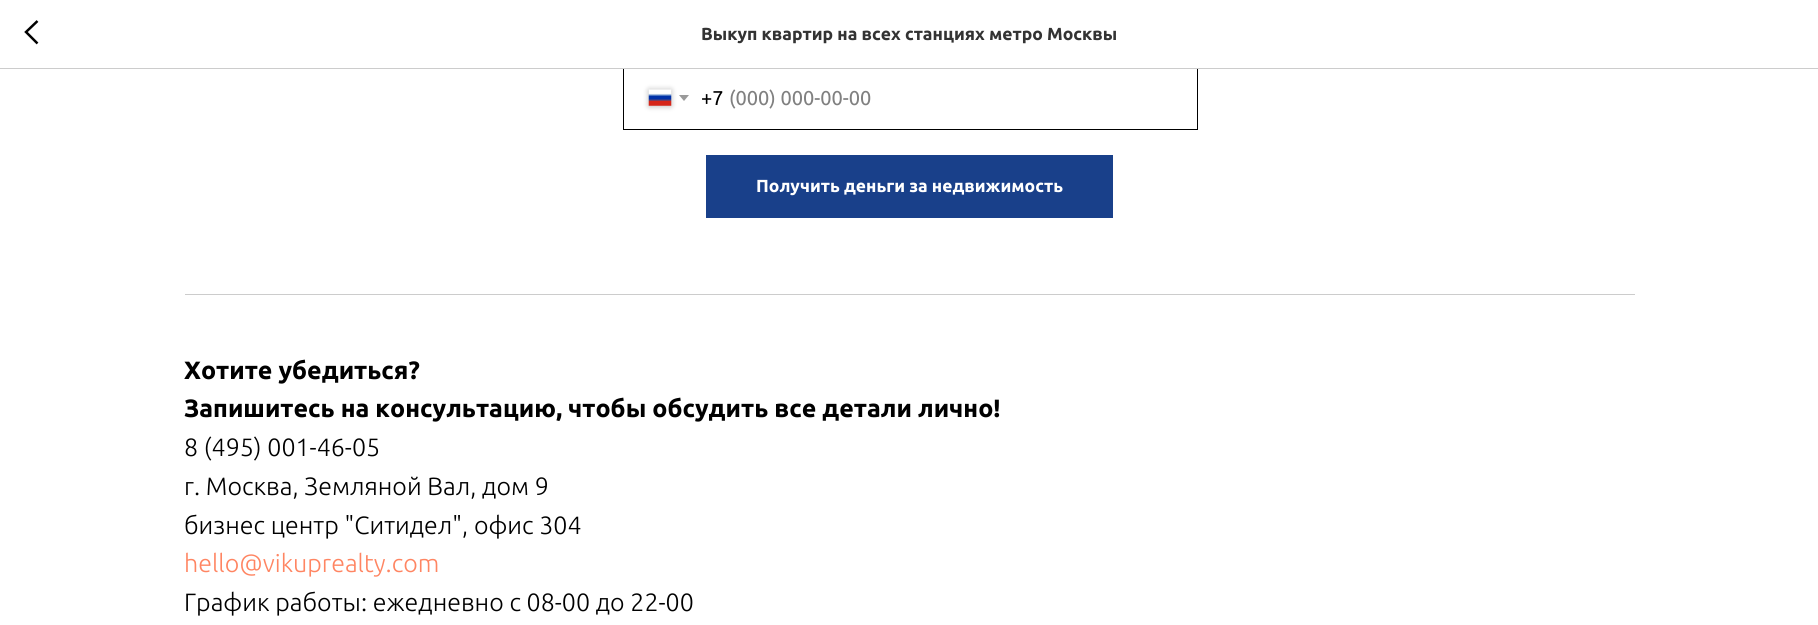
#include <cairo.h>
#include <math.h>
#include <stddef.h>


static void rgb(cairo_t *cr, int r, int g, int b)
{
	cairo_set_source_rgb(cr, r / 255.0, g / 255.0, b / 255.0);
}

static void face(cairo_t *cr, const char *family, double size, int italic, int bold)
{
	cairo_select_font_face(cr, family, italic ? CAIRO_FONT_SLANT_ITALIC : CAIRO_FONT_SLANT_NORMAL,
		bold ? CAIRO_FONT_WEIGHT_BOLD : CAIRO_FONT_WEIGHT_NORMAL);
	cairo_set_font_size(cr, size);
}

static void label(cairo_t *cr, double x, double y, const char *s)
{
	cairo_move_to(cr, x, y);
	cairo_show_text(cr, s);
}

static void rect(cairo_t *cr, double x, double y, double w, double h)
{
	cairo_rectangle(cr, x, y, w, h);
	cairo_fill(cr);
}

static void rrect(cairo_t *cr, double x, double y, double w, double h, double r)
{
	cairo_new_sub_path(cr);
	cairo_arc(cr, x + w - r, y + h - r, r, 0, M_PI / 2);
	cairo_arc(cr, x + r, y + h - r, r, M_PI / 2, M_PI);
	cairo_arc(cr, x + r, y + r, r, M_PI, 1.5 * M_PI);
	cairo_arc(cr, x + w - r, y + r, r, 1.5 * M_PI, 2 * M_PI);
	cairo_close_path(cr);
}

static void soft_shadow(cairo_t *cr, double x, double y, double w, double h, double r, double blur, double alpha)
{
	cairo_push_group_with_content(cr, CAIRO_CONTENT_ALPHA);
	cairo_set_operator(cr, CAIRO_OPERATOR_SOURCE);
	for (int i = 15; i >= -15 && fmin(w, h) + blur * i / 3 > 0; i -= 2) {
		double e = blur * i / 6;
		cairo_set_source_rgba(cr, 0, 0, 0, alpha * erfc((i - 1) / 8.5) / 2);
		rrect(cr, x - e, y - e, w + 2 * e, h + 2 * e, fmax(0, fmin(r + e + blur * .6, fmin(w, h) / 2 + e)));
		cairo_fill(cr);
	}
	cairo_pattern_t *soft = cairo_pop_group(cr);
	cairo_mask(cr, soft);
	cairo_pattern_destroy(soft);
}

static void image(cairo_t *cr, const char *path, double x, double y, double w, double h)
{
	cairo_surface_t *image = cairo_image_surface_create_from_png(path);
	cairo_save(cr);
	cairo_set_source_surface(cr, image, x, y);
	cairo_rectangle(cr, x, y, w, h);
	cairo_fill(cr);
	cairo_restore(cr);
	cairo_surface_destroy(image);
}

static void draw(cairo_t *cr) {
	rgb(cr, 255, 255, 255);
	cairo_paint(cr);
	cairo_rectangle(cr, 623.5, 68.5, 574, 61);
	rgb(cr, 0, 0, 0);
	cairo_set_line_width(cr, 1);
	cairo_stroke(cr);
	rgb(cr, 204, 204, 204);
	rect(cr, 0, 68, 1818, 1);
	cairo_new_path(cr);
	cairo_move_to(cr, 37.5, 43.5);
	cairo_line_to(cr, 26, 32);
	cairo_line_to(cr, 37.5, 21);
	rgb(cr, 0, 0, 0);
	cairo_set_line_width(cr, 2.5);
	cairo_stroke(cr);
	face(cr, "Ubuntu", 17.5, 0, 1);
	rgb(cr, 51, 51, 51);
	label(cr, 701, 40, "Выкуп квартир на всех станциях метро Москвы");
	rgb(cr, 0, 0, 0);
	soft_shadow(cr, 649, 90, 22, 16, 0, 3, 0.3);
	image(cr, "image0.png", 648, 89, 24, 17);
	rgb(cr, 154, 154, 154);
	cairo_new_path(cr);
	cairo_move_to(cr, 679, 95);
	cairo_line_to(cr, 689, 95);
	cairo_line_to(cr, 684, 101);
	cairo_close_path(cr);
	cairo_fill(cr);
	face(cr, "Ubuntu", 20, 0, 0);
	rgb(cr, 0, 0, 0);
	label(cr, 701, 105, "+7");
	rgb(cr, 128, 128, 128);
	label(cr, 729, 105, "(000) 000-00-00");
	rgb(cr, 25, 64, 138);
	rect(cr, 706, 155, 407, 63);
	face(cr, "Ubuntu", 17.5, 0, 1);
	rgb(cr, 255, 255, 255);
	label(cr, 756, 192, "Получить деньги за недвижимость");
	rgb(cr, 204, 204, 204);
	rect(cr, 185, 294, 1450, 1);
	face(cr, "Ubuntu", 25, 0, 1);
	rgb(cr, 0, 0, 0);
	label(cr, 184, 379, "Хотите убедиться?");
	label(cr, 184, 417, "Запишитесь на консультацию, чтобы обсудить все детали лично!");
	face(cr, "Ubuntu Light", 25, 0, 0);
	label(cr, 184, 456, "8 (495) 001-46-05");
	label(cr, 184, 495, "г. Москва, Земляной Вал, дом 9");
	label(cr, 184, 534, "бизнес центр \"Ситидел\", офис 304");
	rgb(cr, 255, 133, 98);
	label(cr, 184, 572, "hello@vikuprealty.com");
	rgb(cr, 0, 0, 0);
	label(cr, 184, 611, "График работы: ежедневно с 08-00 до 22-00");
}

int main(void) {
	cairo_surface_t *surface = cairo_image_surface_create(CAIRO_FORMAT_RGB24, 1818, 625);
	cairo_t *cr = cairo_create(surface);
	cairo_font_options_t *options = cairo_font_options_create();
	cairo_font_options_set_hint_metrics(options, CAIRO_HINT_METRICS_OFF);
	cairo_font_options_set_hint_style(options, CAIRO_HINT_STYLE_NONE);
	cairo_set_font_options(cr, options);
	cairo_set_miter_limit(cr, 4);
	draw(cr);
	cairo_surface_write_to_png(surface, "render.png");
	cairo_font_options_destroy(options);
	cairo_destroy(cr);
	cairo_surface_destroy(surface);
	return 0;
}
